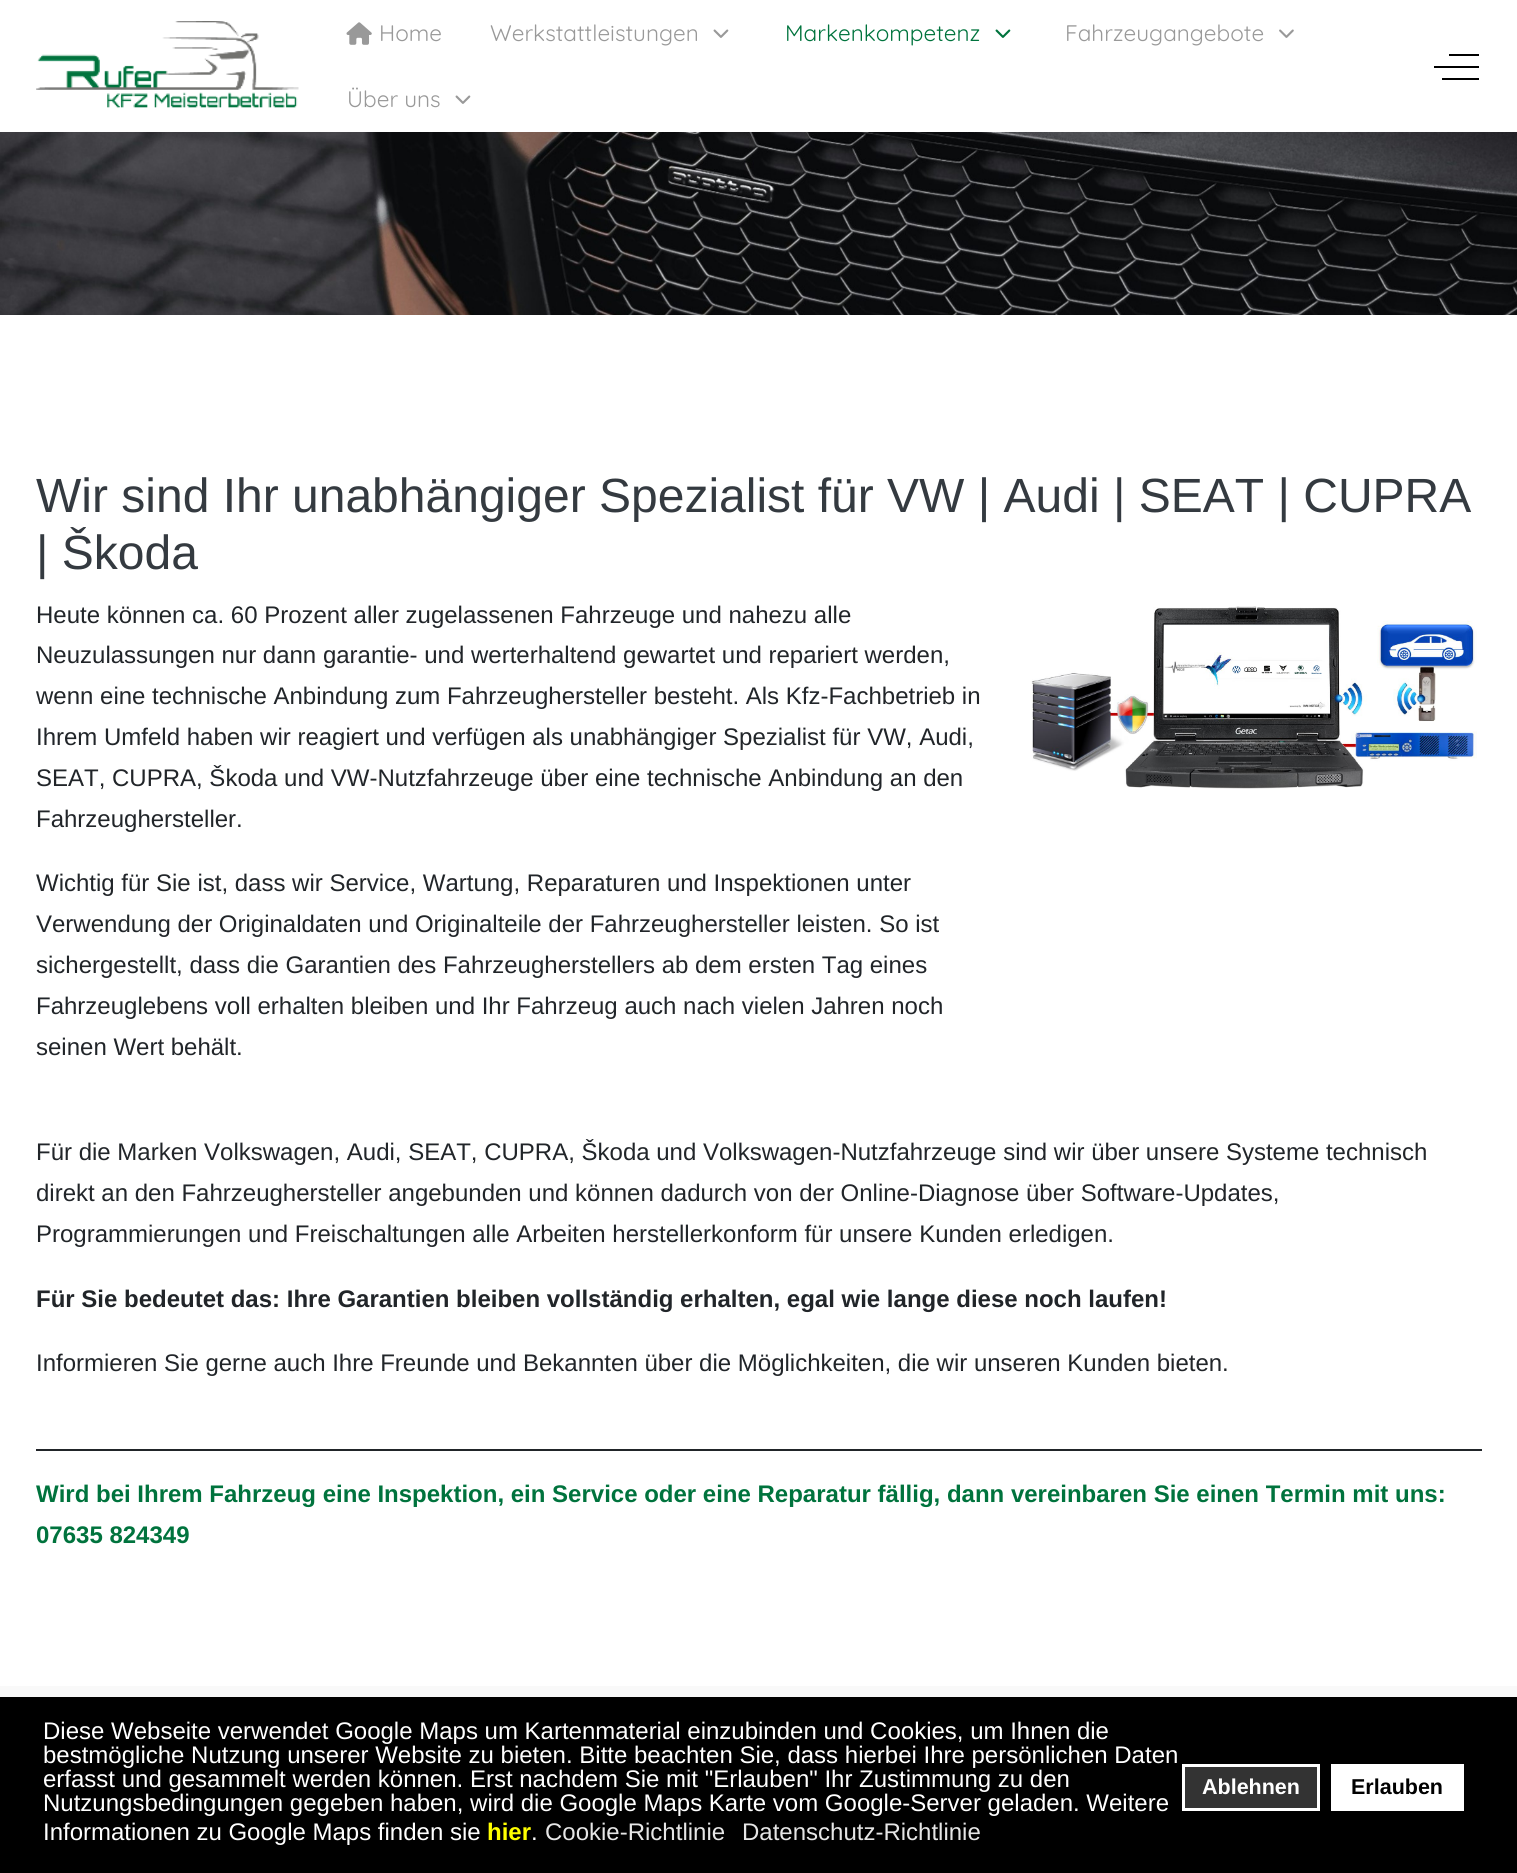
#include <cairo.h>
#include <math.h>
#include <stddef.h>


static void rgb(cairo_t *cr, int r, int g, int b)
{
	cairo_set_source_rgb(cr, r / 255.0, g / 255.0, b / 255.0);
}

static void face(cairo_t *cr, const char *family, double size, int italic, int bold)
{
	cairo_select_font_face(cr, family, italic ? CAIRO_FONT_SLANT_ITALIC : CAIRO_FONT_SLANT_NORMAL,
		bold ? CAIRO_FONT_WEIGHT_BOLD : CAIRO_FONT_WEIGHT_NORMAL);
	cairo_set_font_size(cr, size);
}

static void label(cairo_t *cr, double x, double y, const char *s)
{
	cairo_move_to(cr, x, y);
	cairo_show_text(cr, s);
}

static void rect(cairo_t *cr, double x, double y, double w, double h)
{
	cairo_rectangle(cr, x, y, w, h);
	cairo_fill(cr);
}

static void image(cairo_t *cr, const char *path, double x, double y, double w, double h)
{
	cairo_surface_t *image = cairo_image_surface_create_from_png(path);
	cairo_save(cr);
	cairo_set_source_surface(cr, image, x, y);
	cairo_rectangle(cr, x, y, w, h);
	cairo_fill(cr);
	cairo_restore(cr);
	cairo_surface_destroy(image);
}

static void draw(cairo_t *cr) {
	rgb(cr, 255, 255, 255);
	cairo_paint(cr);
	image(cr, "image0.png", 36, 21, 263, 87);
	image(cr, "image1.png", 346, 22, 26, 23);
	face(cr, "Quicksand", 22.5, 0, 0);
	rgb(cr, 153, 153, 153);
	label(cr, 379, 41, "Home");
	label(cr, 490, 41, "Werkstattleistungen");
	image(cr, "image2.png", 713, 29, 16, 9);
	rgb(cr, 0, 115, 61);
	label(cr, 785, 41, "Markenkompetenz");
	image(cr, "image3.png", 995, 29, 16, 9);
	rgb(cr, 153, 153, 153);
	label(cr, 1065, 41, "Fahrzeugangebote");
	image(cr, "image4.png", 1279, 29, 15, 9);
	label(cr, 347, 107, "Über uns");
	image(cr, "image2.png", 455, 95, 16, 9);
	rgb(cr, 0, 0, 0);
	rect(cr, 1434, 66, 45, 2);
	rect(cr, 1449, 54, 30, 2);
	rect(cr, 1442, 78, 37, 2);
	image(cr, "image5.png", 0, 132, 1517, 183);
	face(cr, "Liberation Sans", 48, 0, 0);
	rgb(cr, 52, 58, 64);
	label(cr, 36, 512, "Wir sind Ihr unabhängiger Spezialist für VW | Audi | SEAT | CUPRA");
	label(cr, 36, 569, "| Škoda");
	face(cr, "Liberation Sans", 24, 0, 0);
	rgb(cr, 33, 37, 41);
	label(cr, 36, 623, "Heute können ca. 60 Prozent aller zugelassenen Fahrzeuge und nahezu alle");
	label(cr, 36, 663, "Neuzulassungen nur dann garantie- und werterhaltend gewartet und repariert werden,");
	label(cr, 36, 704, "wenn eine technische Anbindung zum Fahrzeughersteller besteht. Als Kfz-Fachbetrieb in");
	label(cr, 36, 745, "Ihrem Umfeld haben wir reagiert und verfügen als unabhängiger Spezialist für VW, Audi,");
	label(cr, 36, 786, "SEAT, CUPRA, Škoda und VW-Nutzfahrzeuge über eine technische Anbindung an den");
	label(cr, 36, 827, "Fahrzeughersteller.");
	label(cr, 36, 891, "Wichtig für Sie ist, dass wir Service, Wartung, Reparaturen und Inspektionen unter");
	label(cr, 36, 932, "Verwendung der Originaldaten und Originalteile der Fahrzeughersteller leisten. So ist");
	label(cr, 36, 973, "sichergestellt, dass die Garantien des Fahrzeugherstellers ab dem ersten Tag eines");
	label(cr, 36, 1014, "Fahrzeuglebens voll erhalten bleiben und Ihr Fahrzeug auch nach vielen Jahren noch");
	label(cr, 36, 1055, "seinen Wert behält.");
	image(cr, "image6.png", 1031, 606, 446, 183);
	label(cr, 36, 1160, "Für die Marken Volkswagen, Audi, SEAT, CUPRA, Škoda und Volkswagen-Nutzfahrzeuge sind wir über unsere Systeme technisch");
	label(cr, 36, 1201, "direkt an den Fahrzeughersteller angebunden und können dadurch von der Online-Diagnose über Software-Updates,");
	label(cr, 36, 1242, "Programmierungen und Freischaltungen alle Arbeiten herstellerkonform für unsere Kunden erledigen.");
	face(cr, "Liberation Sans", 24, 0, 1);
	label(cr, 36, 1307, "Für Sie bedeutet das: Ihre Garantien bleiben vollständig erhalten, egal wie lange diese noch laufen!");
	face(cr, "Liberation Sans", 24, 0, 0);
	label(cr, 36, 1371, "Informieren Sie gerne auch Ihre Freunde und Bekannten über die Möglichkeiten, die wir unseren Kunden bieten.");
	rect(cr, 36, 1449, 1446, 2);
	face(cr, "Liberation Sans", 24, 0, 1);
	rgb(cr, 0, 115, 61);
	label(cr, 36, 1502, "Wird bei Ihrem Fahrzeug eine Inspektion, ein Service oder eine Reparatur fällig, dann vereinbaren Sie einen Termin mit uns:");
	label(cr, 36, 1543, "07635 824349");
	rgb(cr, 249, 249, 249);
	rect(cr, 0, 1686, 1517, 11);
	rgb(cr, 0, 0, 0);
	rect(cr, 0, 1697, 1517, 176);
	face(cr, "Liberation Sans", 24, 0, 0);
	rgb(cr, 255, 255, 255);
	label(cr, 43, 1739, "Diese Webseite verwendet Google Maps um Kartenmaterial einzubinden und Cookies, um Ihnen die");
	label(cr, 43, 1763, "bestmögliche Nutzung unserer Website zu bieten. Bitte beachten Sie, dass hierbei Ihre persönlichen Daten");
	label(cr, 43, 1787, "erfasst und gesammelt werden können. Erst nachdem Sie mit \"Erlauben\" Ihr Zustimmung zu den");
	label(cr, 43, 1811, "Nutzungsbedingungen gegeben haben, wird die Google Maps Karte vom Google-Server geladen. Weitere");
	label(cr, 43, 1840, "Informationen zu Google Maps finden sie");
	face(cr, "Liberation Sans", 24, 0, 1);
	rgb(cr, 255, 255, 0);
	label(cr, 487, 1840, "hier");
	face(cr, "Liberation Sans", 24, 0, 0);
	rgb(cr, 255, 255, 255);
	label(cr, 531, 1840, ".");
	rgb(cr, 230, 230, 230);
	label(cr, 545, 1840, "Cookie-Richtlinie");
	label(cr, 742, 1840, "Datenschutz-Richtlinie");
	rgb(cr, 51, 51, 51);
	cairo_rectangle(cr, 1183.5, 1765.5, 135, 44);
	cairo_fill_preserve(cr);
	rgb(cr, 255, 255, 255);
	cairo_set_line_width(cr, 3);
	cairo_stroke(cr);
	face(cr, "Liberation Sans", 21.5, 0, 1);
	label(cr, 1202, 1794, "Ablehnen");
	rect(cr, 1331, 1764, 133, 47);
	rgb(cr, 0, 0, 0);
	label(cr, 1351, 1794, "Erlauben");
}

int main(void) {
	cairo_surface_t *surface = cairo_image_surface_create(CAIRO_FORMAT_RGB24, 1517, 1873);
	cairo_t *cr = cairo_create(surface);
	cairo_font_options_t *options = cairo_font_options_create();
	cairo_font_options_set_hint_metrics(options, CAIRO_HINT_METRICS_OFF);
	cairo_font_options_set_hint_style(options, CAIRO_HINT_STYLE_NONE);
	cairo_set_font_options(cr, options);
	cairo_set_miter_limit(cr, 4);
	draw(cr);
	cairo_surface_write_to_png(surface, "render.png");
	cairo_font_options_destroy(options);
	cairo_destroy(cr);
	cairo_surface_destroy(surface);
	return 0;
}
